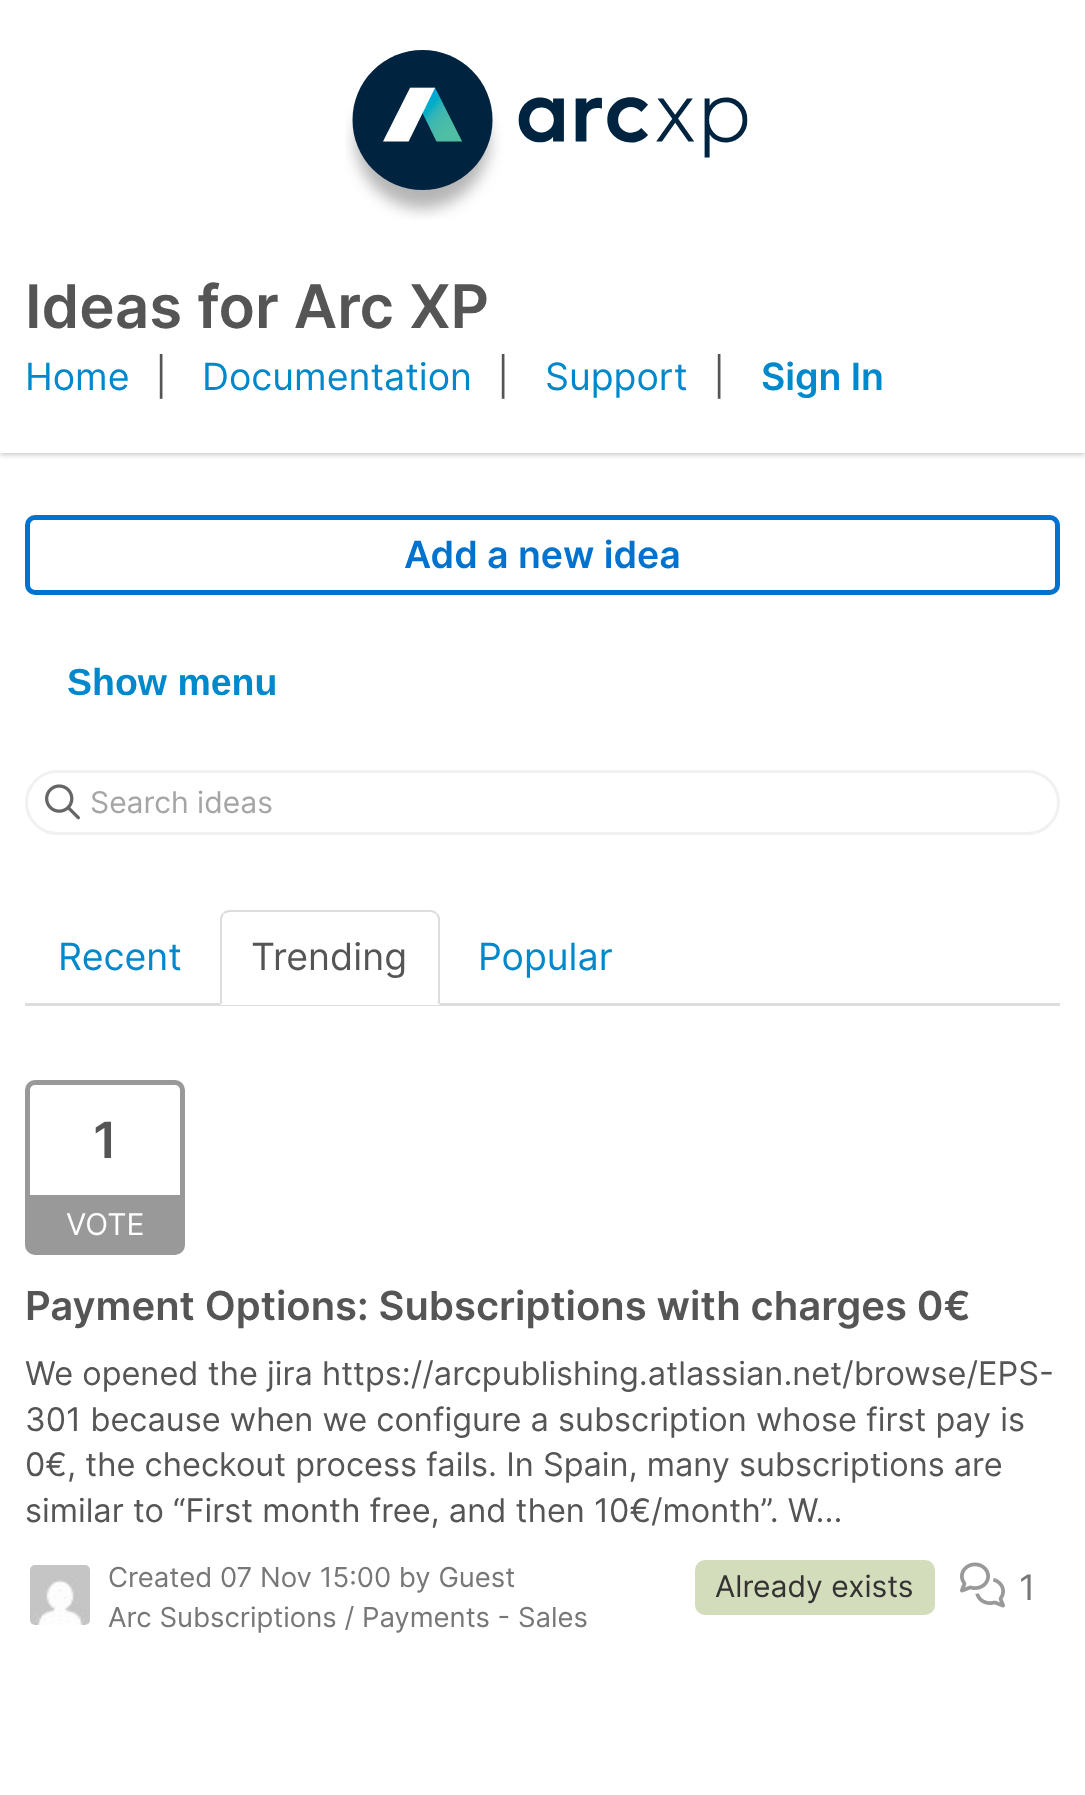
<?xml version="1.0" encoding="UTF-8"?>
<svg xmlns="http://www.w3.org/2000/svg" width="1085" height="1795">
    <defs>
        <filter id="blur1" x="-50%" y="-200%" width="200%" height="500%"><feGaussianBlur stdDeviation="2.5"/></filter>
    </defs>
    <rect width="100%" height="100%" fill="#FFFFFF"/>
    <rect x="0" y="3" width="1085" height="452" fill="#000000" fill-opacity="0.2" filter="url(#blur1)"/>
    <rect x="0" y="0" width="1085" height="453" fill="#FFFFFF"/>
    <image x="345" y="50" width="403" height="170" href="img_01.png"/>
    <text x="25" y="328" font-family="Inter" font-size="60" font-weight="600" fill="#555555">Ideas for Arc XP</text>
    <text x="25" y="390" font-family="Inter" font-size="37.5" fill="#0088CC">Home</text>
    <text x="155" y="390" font-family="Inter" font-size="37.5" fill="#555555">|</text>
    <text x="202" y="390" font-family="Inter" font-size="37.5" fill="#0088CC">Documentation</text>
    <text x="497" y="390" font-family="Inter" font-size="37.5" fill="#555555">|</text>
    <text x="545" y="390" font-family="Inter" font-size="37.5" fill="#0088CC">Support</text>
    <text x="713" y="390" font-family="Inter" font-size="37.5" fill="#555555">|</text>
    <text x="761" y="390" font-family="Inter" font-size="37.5" font-weight="600" fill="#0088CC">Sign In</text>
    <rect x="27.5" y="517.5" width="1030" height="75" rx="7.5" fill="none" stroke="#0173CF" stroke-width="5"/>
    <text x="404" y="568" font-family="Inter" font-size="37.5" font-weight="600" fill="#0173CF">Add a new idea</text>
    <text x="67" y="695" font-family="Liberation Sans" font-size="37.5" font-weight="700" fill="#0088CC">Show menu</text>
    <rect x="26.5" y="771.5" width="1032" height="62" rx="31" fill="none" stroke="#F1F1F1" stroke-width="3"/>
    <image x="45" y="784" width="35" height="36" href="img_02.png"/>
    <text x="90" y="813" font-family="Inter" font-size="30" fill="#A5A5A5">Search ideas</text>
    <rect x="25" y="1003" width="1035" height="3" fill="#DDDDDD"/>
    <text x="58" y="970" font-family="Inter" font-size="37.5" fill="#0088CC">Recent</text>
    <path d="M 230 910 H 430 C 435.5 910 440 914.5 440 920 V 1005 H 220 V 920 C 220 914.5 224.5 910 230 910 Z" fill="#FFFFFF"/>
    <path d="M 230 910 C 227 910 224 911 223 913 L 224 914 C 226 913 228 912 230 912 H 430 C 432 912 434 913 436 914 L 437 913 C 436 911 433 910 430 910 Z" fill="#DDDDDD"/>
    <path d="M 440 1005 V 920 C 440 917 439 914 437 913 L 436 914 C 437 916 438 918 438 920 V 1002 H 437 Z" fill="#DDDDDD"/>
    <path d="M 220 1005 L 223 1002 H 222 V 920 C 222 918 223 916 224 914 L 223 913 C 221 914 220 917 220 920 Z" fill="#DDDDDD"/>
    <text x="251" y="970" font-family="Inter" font-size="37.5" fill="#555555">Trending</text>
    <text x="478" y="970" font-family="Inter" font-size="37.5" fill="#0088CC">Popular</text>
    <rect x="27.5" y="1082.5" width="155" height="170" rx="7.5" fill="none" stroke="#999999" stroke-width="5"/>
    <text x="93" y="1158" font-family="Inter" font-size="50" font-weight="600" fill="#555555">1</text>
    <rect x="30" y="1195" width="150" height="55" fill="#999999"/>
    <text x="66" y="1235" font-family="Inter" font-size="30" fill="#FFFFFF">VOTE</text>
    <text x="25" y="1320" font-family="Inter" font-size="40" font-weight="600" fill="#555555">Payment Options: Subscriptions with charges 0€</text>
    <text font-family="Inter" font-size="32.5" fill="#555555">
        <tspan x="25" y="1385">We opened the jira https://arcpublishing.atlassian.net/browse/EPS-</tspan>
        <tspan x="25" y="1431">301 because when we configure a subscription whose first pay is</tspan>
        <tspan x="25" y="1476">0€, the checkout process fails. In Spain, many subscriptions are</tspan>
        <tspan x="25" y="1522">similar to “First month free, and then 10€/month”. W...</tspan>
    </text>
    <image x="30" y="1565" width="60" height="60" href="img_03.png"/>
    <text font-family="Inter" font-size="27.5" fill="#777777">
        <tspan x="108" y="1587">Created 07 Nov 15:00 by Guest</tspan>
        <tspan x="108" y="1627">Arc Subscriptions / Payments - Sales</tspan>
    </text>
    <rect x="695" y="1560" width="240" height="55" rx="10" fill="#D3DCBB"/>
    <text x="715" y="1597" font-family="Inter" font-size="30" fill="#333333">Already exists</text>
    <image x="960" y="1562" width="45" height="46" href="img_04.png"/>
    <text x="1019" y="1600" font-family="Inter" font-size="35" fill="#777777">1</text>
</svg>
